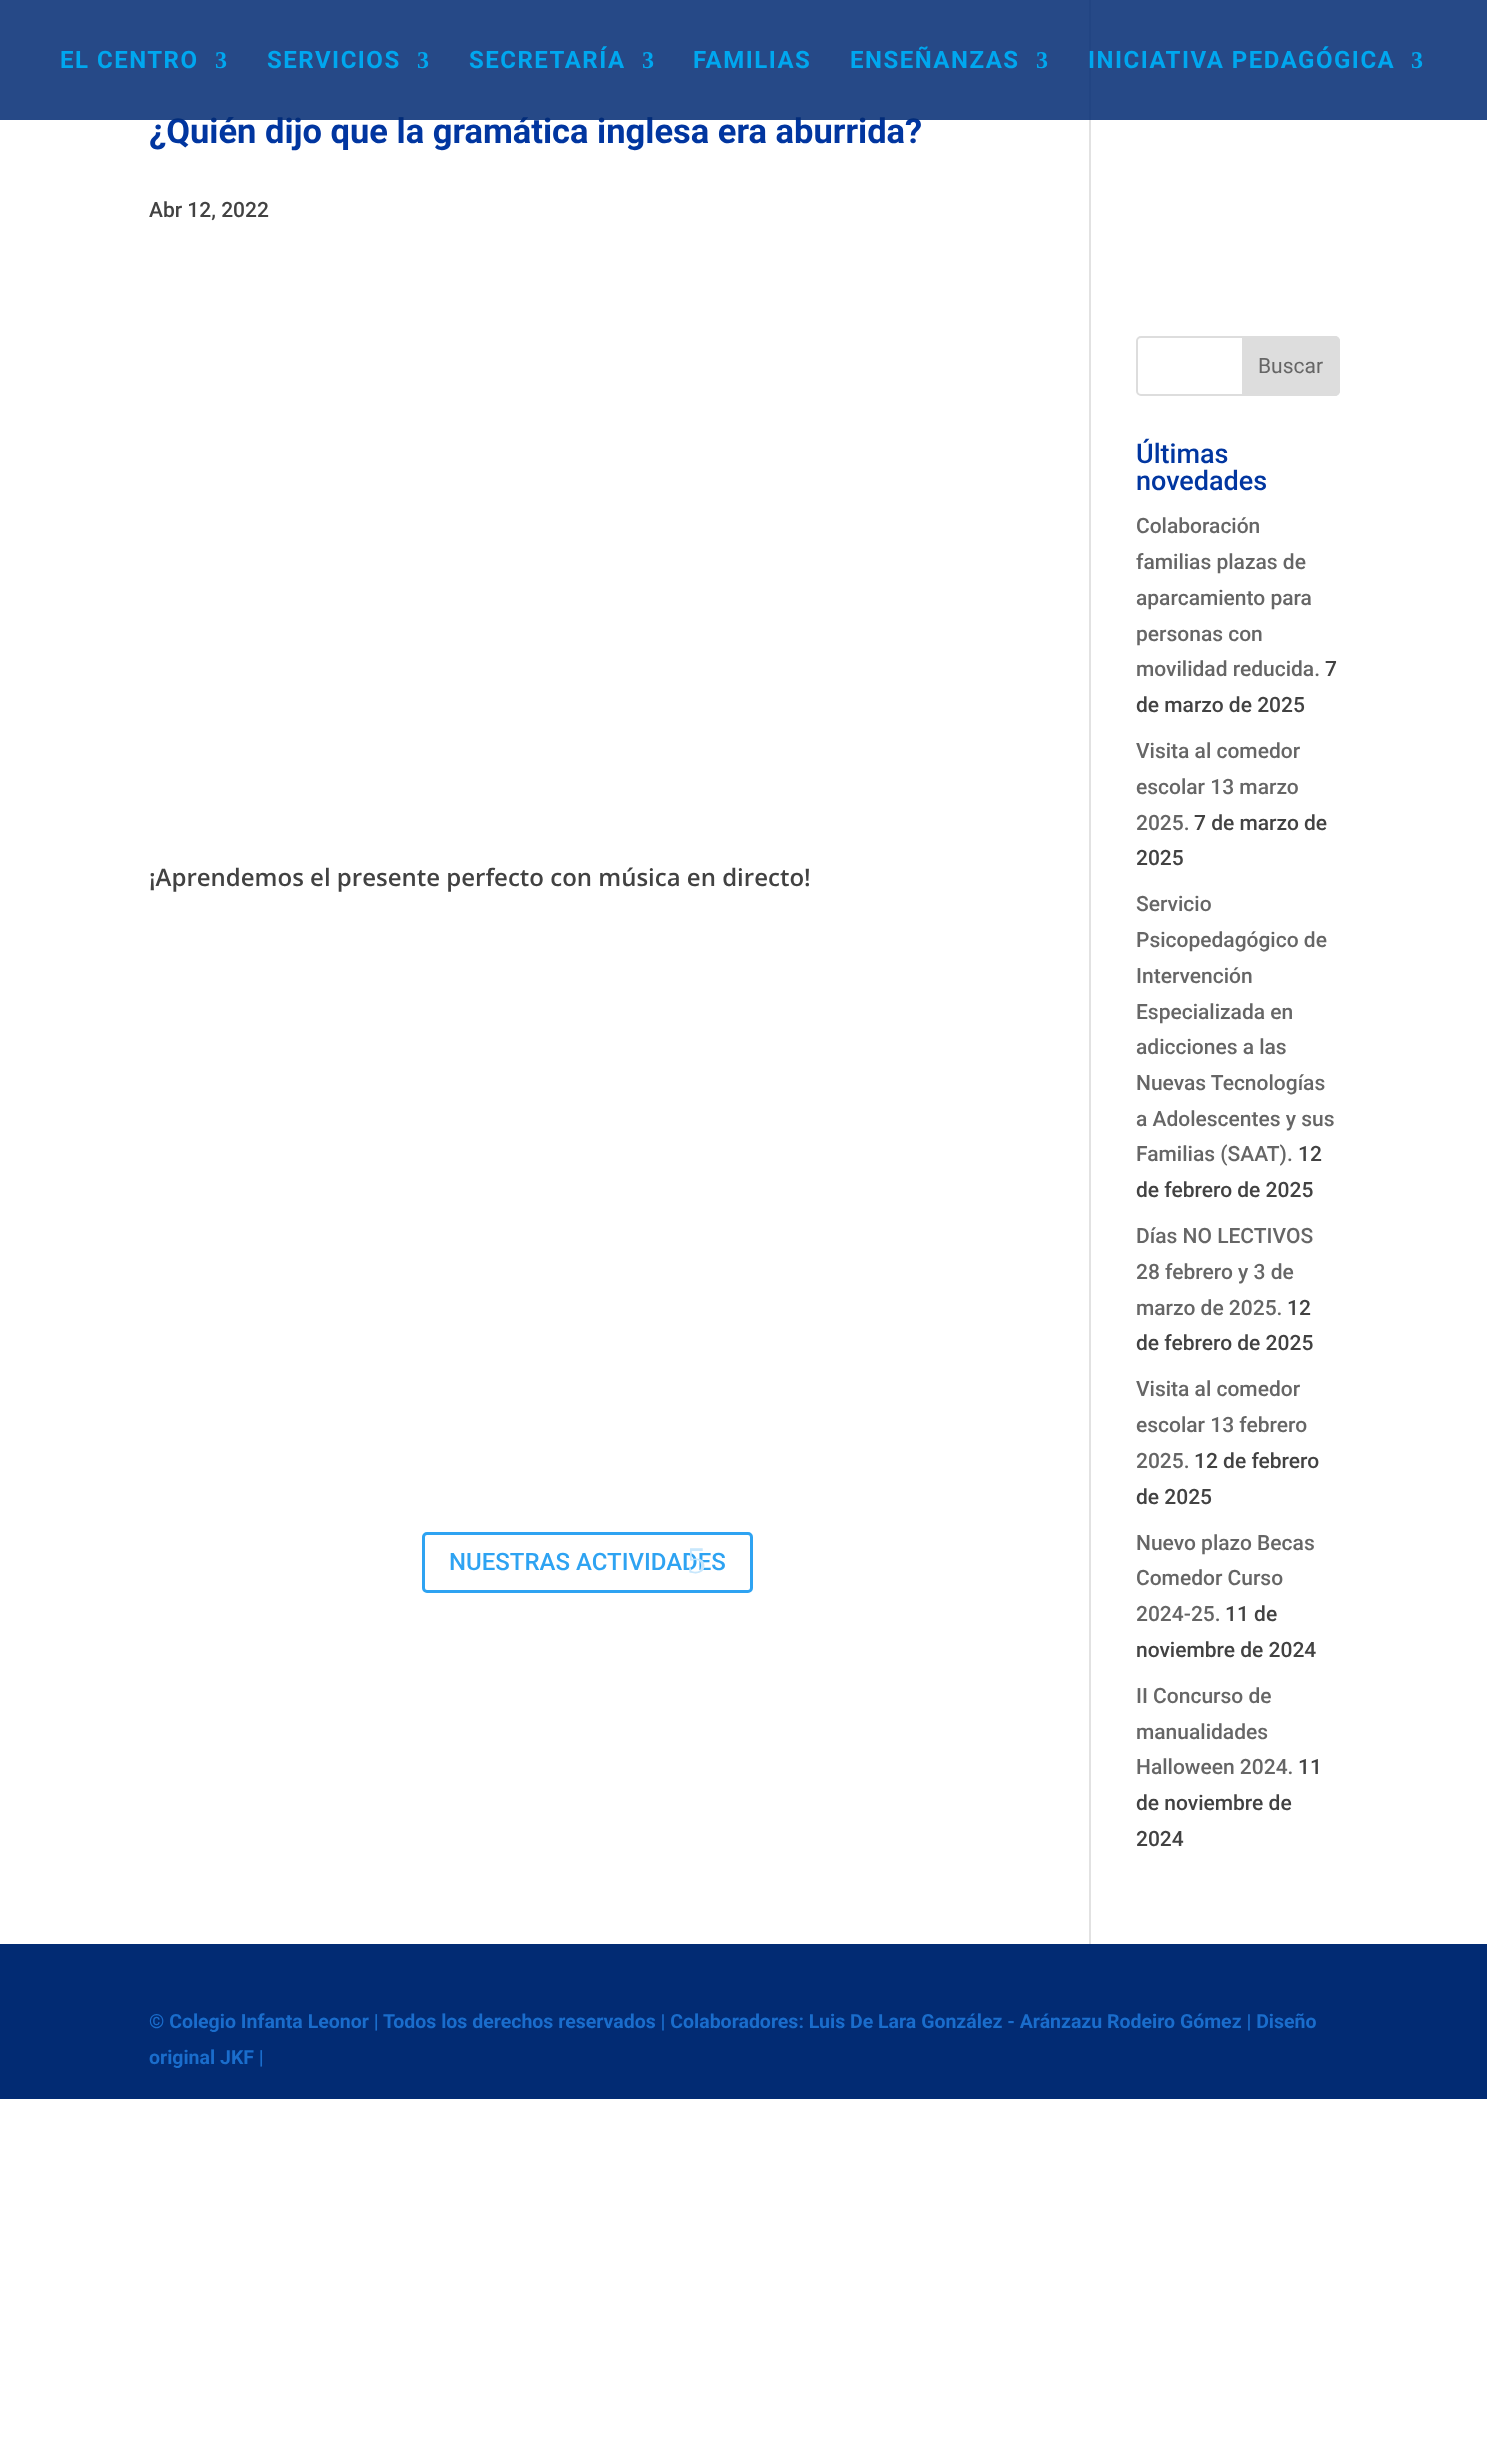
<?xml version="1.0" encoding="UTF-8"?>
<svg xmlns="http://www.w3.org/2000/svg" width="1487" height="2439">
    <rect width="100%" height="100%" fill="#FFFFFF"/>
    <rect x="1089" y="0" width="2" height="1944" fill="#E2E2E2"/>
    <text x="149" y="143" font-family="Roboto" font-size="34.5" font-weight="700" fill="#0136A0">¿Quién dijo que la gramática inglesa era aburrida?</text>
    <rect x="0" y="0" width="1487" height="120" fill="#022B73" fill-opacity="0.86"/>
    <text x="60" y="68" font-family="Roboto" font-size="24" font-weight="700" letter-spacing="1.5" fill="#00A7EF">EL CENTRO</text>
    <text x="215" y="68" font-family="Liberation Serif" font-size="24" font-weight="700" letter-spacing="1.5" fill="#00A7EF">3</text>
    <text x="267" y="68" font-family="Roboto" font-size="24" font-weight="700" letter-spacing="1.5" fill="#00A7EF">SERVICIOS</text>
    <text x="417" y="68" font-family="Liberation Serif" font-size="24" font-weight="700" letter-spacing="1.5" fill="#00A7EF">3</text>
    <text x="469" y="68" font-family="Roboto" font-size="24" font-weight="700" letter-spacing="1.5" fill="#00A7EF">SECRETARÍA</text>
    <text x="642" y="68" font-family="Liberation Serif" font-size="24" font-weight="700" letter-spacing="1.5" fill="#00A7EF">3</text>
    <text x="693" y="68" font-family="Roboto" font-size="24" font-weight="700" letter-spacing="1.5" fill="#00A7EF">FAMILIAS</text>
    <text x="850" y="68" font-family="Roboto" font-size="24" font-weight="700" letter-spacing="1.5" fill="#00A7EF">ENSEÑANZAS</text>
    <text x="1036" y="68" font-family="Liberation Serif" font-size="24" font-weight="700" letter-spacing="1.5" fill="#00A7EF">3</text>
    <text x="1088" y="68" font-family="Roboto" font-size="24" font-weight="700" letter-spacing="1.5" fill="#00A7EF">INICIATIVA PEDAGÓGICA</text>
    <text x="1411" y="68" font-family="Liberation Serif" font-size="24" font-weight="700" letter-spacing="1.5" fill="#00A7EF">3</text>
    <text x="149" y="217" font-family="Roboto" font-size="21" font-weight="500" fill="#424242">Abr 12, 2022</text>
    <text x="149" y="886" font-family="Open Sans" font-size="24" font-weight="600" fill="#424242">¡Aprendemos el presente perfecto con música en directo!</text>
    <rect x="423.5" y="1533.5" width="328" height="58" rx="3.5" fill="none" stroke="#2EA3F2" stroke-width="3"/>
    <text x="449" y="1570" font-family="Roboto" font-size="24" font-weight="500" fill="#2EA3F2">NUESTRAS ACTIVIDADES</text>
    <text x="687" y="1573" font-family="Liberation Serif" font-size="38" fill="#C8E7FC">5</text>
    <rect x="1137" y="337" width="202" height="58" rx="4" fill="none" stroke="#DDDDDD" stroke-width="2"/>
    <path d="M 1243 337 H 1335 C 1337 337 1339 339 1339 341 V 391 C 1339 393 1337 395 1335 395 H 1243 Z" fill="#DDDDDD" stroke="#DDDDDD" stroke-width="2"/>
    <text x="1258" y="373" font-family="Roboto" font-size="21" fill="#666666">Buscar</text>
    <text font-family="Roboto" font-size="27" font-weight="500" fill="#0136A0">
        <tspan x="1136" y="463">Últimas</tspan>
        <tspan x="1136" y="490">novedades</tspan>
    </text>
    <text font-family="Roboto" font-size="21" font-weight="500" fill="#666666">
        <tspan x="1136" y="533">Colaboración</tspan>
        <tspan x="1136" y="569">familias plazas de</tspan>
        <tspan x="1136" y="605">aparcamiento para</tspan>
        <tspan x="1136" y="641">personas con</tspan>
        <tspan x="1136" y="676">movilidad reducida.</tspan>
    </text>
    <text x="1325" y="676" font-family="Roboto" font-size="21" font-weight="500" fill="#424242">7</text>
    <text x="1136" y="712" font-family="Roboto" font-size="21" font-weight="500" fill="#424242">de marzo de 2025</text>
    <text font-family="Roboto" font-size="21" font-weight="500" fill="#666666">
        <tspan x="1136" y="758">Visita al comedor</tspan>
        <tspan x="1136" y="794">escolar 13 marzo</tspan>
        <tspan x="1136" y="830">2025.</tspan>
    </text>
    <text x="1194" y="830" font-family="Roboto" font-size="21" font-weight="500" fill="#424242">7 de marzo de</text>
    <text x="1136" y="865" font-family="Roboto" font-size="21" font-weight="500" fill="#424242">2025</text>
    <text font-family="Roboto" font-size="21" font-weight="500" fill="#666666">
        <tspan x="1136" y="911">Servicio</tspan>
        <tspan x="1136" y="947">Psicopedagógico de</tspan>
        <tspan x="1136" y="983">Intervención</tspan>
        <tspan x="1136" y="1019">Especializada en</tspan>
        <tspan x="1136" y="1054">adicciones a las</tspan>
        <tspan x="1136" y="1090">Nuevas Tecnologías</tspan>
        <tspan x="1136" y="1126">a Adolescentes y sus</tspan>
        <tspan x="1136" y="1161">Familias (SAAT).</tspan>
    </text>
    <text x="1298" y="1161" font-family="Roboto" font-size="21" font-weight="500" fill="#424242">12</text>
    <text x="1136" y="1197" font-family="Roboto" font-size="21" font-weight="500" fill="#424242">de febrero de 2025</text>
    <text font-family="Roboto" font-size="21" font-weight="500" fill="#666666">
        <tspan x="1136" y="1243">Días NO LECTIVOS</tspan>
        <tspan x="1136" y="1279">28 febrero y 3 de</tspan>
        <tspan x="1136" y="1315">marzo de 2025.</tspan>
    </text>
    <text x="1287" y="1315" font-family="Roboto" font-size="21" font-weight="500" fill="#424242">12</text>
    <text x="1136" y="1350" font-family="Roboto" font-size="21" font-weight="500" fill="#424242">de febrero de 2025</text>
    <text font-family="Roboto" font-size="21" font-weight="500" fill="#666666">
        <tspan x="1136" y="1396">Visita al comedor</tspan>
        <tspan x="1136" y="1432">escolar 13 febrero</tspan>
        <tspan x="1136" y="1468">2025.</tspan>
    </text>
    <text x="1194" y="1468" font-family="Roboto" font-size="21" font-weight="500" fill="#424242">12 de febrero</text>
    <text x="1136" y="1504" font-family="Roboto" font-size="21" font-weight="500" fill="#424242">de 2025</text>
    <text font-family="Roboto" font-size="21" font-weight="500" fill="#666666">
        <tspan x="1136" y="1550">Nuevo plazo Becas</tspan>
        <tspan x="1136" y="1585">Comedor Curso</tspan>
        <tspan x="1136" y="1621">2024-25.</tspan>
    </text>
    <text x="1225" y="1621" font-family="Roboto" font-size="21" font-weight="500" fill="#424242">11 de</text>
    <text x="1136" y="1657" font-family="Roboto" font-size="21" font-weight="500" fill="#424242">noviembre de 2024</text>
    <text font-family="Roboto" font-size="21" font-weight="500" fill="#666666">
        <tspan x="1136" y="1703">II Concurso de</tspan>
        <tspan x="1136" y="1739">manualidades</tspan>
        <tspan x="1136" y="1774">Halloween 2024.</tspan>
    </text>
    <text x="1298" y="1774" font-family="Roboto" font-size="21" font-weight="500" fill="#424242">11</text>
    <text font-family="Roboto" font-size="21" font-weight="500" fill="#424242">
        <tspan x="1136" y="1810">de noviembre de</tspan>
        <tspan x="1136" y="1846">2024</tspan>
    </text>
    <rect x="0" y="1944" width="1487" height="155" fill="#022B73"/>
    <text font-family="Roboto" font-size="19.5" font-weight="700" fill="#1A6DCC">
        <tspan x="149" y="2028">© Colegio Infanta Leonor | Todos los derechos reservados | Colaboradores: Luis De Lara González - Aránzazu Rodeiro Gómez | Diseño</tspan>
        <tspan x="149" y="2064">original JKF |</tspan>
    </text>
</svg>
